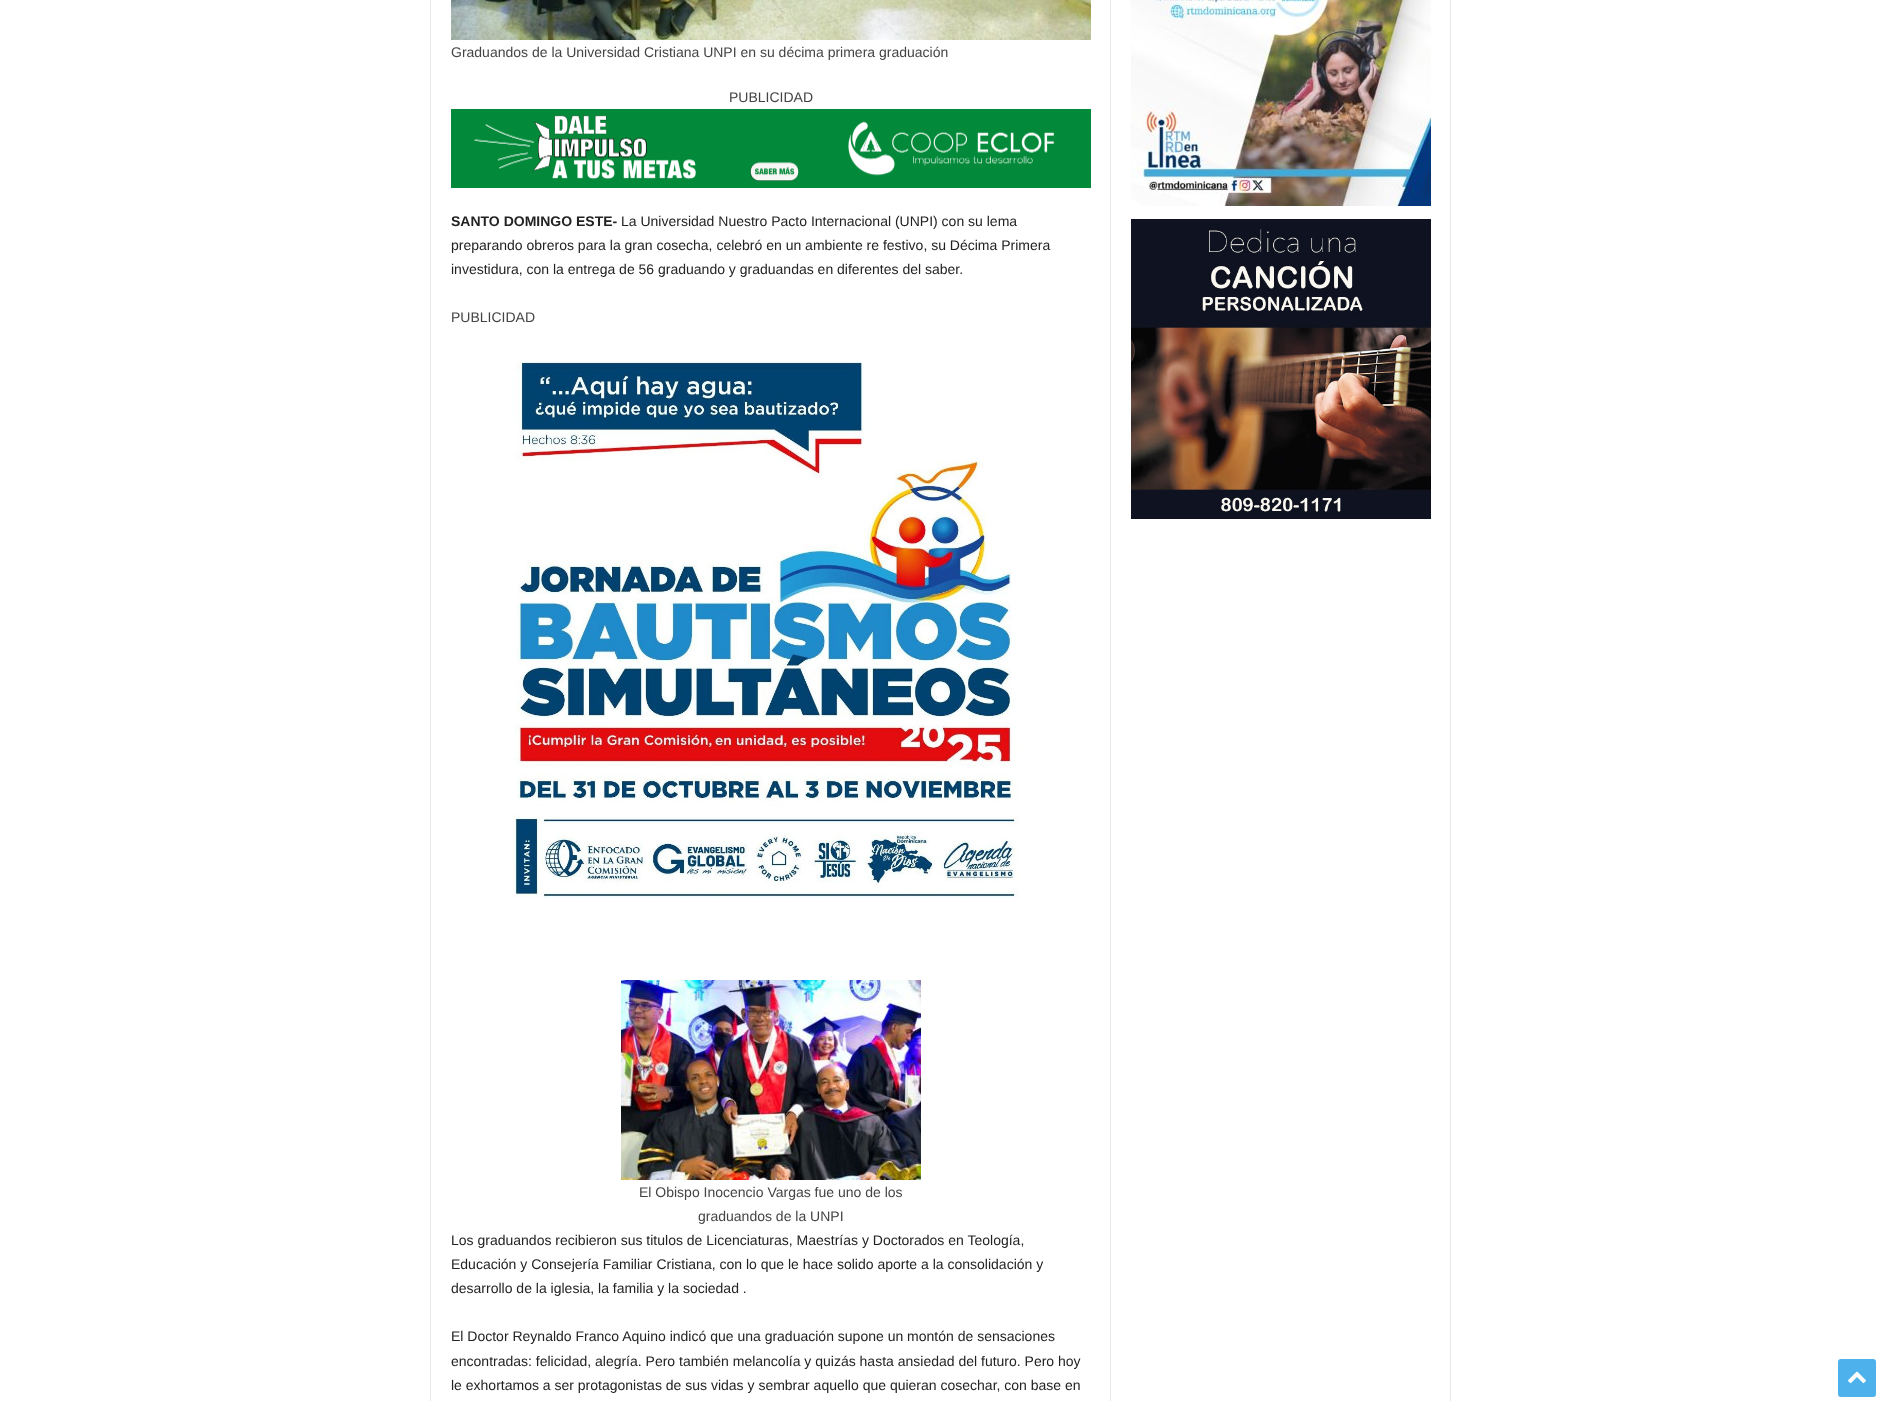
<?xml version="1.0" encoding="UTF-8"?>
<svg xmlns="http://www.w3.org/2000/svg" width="1881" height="1401">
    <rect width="100%" height="100%" fill="#FFFFFF"/>
    <rect x="430" y="0" width="1" height="1401" fill="#E6E6E6"/>
    <image x="451" y="0" width="640" height="40" href="img_01.png"/>
    <text x="451" y="57" font-family="Liberation Sans" font-size="14" fill="#444444">Graduandos de la Universidad Cristiana UNPI en su décima primera graduación</text>
    <text x="729" y="102" font-family="Liberation Sans" font-size="14" fill="#444444">PUBLICIDAD</text>
    <image x="451" y="109" width="640" height="79" href="img_02.png"/>
    <text x="451" y="226" font-family="Liberation Sans" font-size="14" font-weight="700" fill="#222222">SANTO DOMINGO ESTE-</text>
    <text x="621" y="226" font-family="Liberation Sans" font-size="14" fill="#222222">La Universidad Nuestro Pacto Internacional (UNPI) con su lema</text>
    <text font-family="Liberation Sans" font-size="14" fill="#222222">
        <tspan x="451" y="250">preparando obreros para la gran cosecha, celebró en un ambiente re festivo, su Décima Primera</tspan>
        <tspan x="451" y="274">investidura, con la entrega de 56 graduando y graduandas en diferentes del saber.</tspan>
    </text>
    <text x="451" y="322" font-family="Liberation Sans" font-size="14" fill="#444444">PUBLICIDAD</text>
    <image x="511" y="361" width="509" height="537" href="img_03.png"/>
    <image x="621" y="980" width="300" height="200" href="img_04.png"/>
    <text x="639" y="1197" font-family="Liberation Sans" font-size="14" fill="#444444">El Obispo Inocencio Vargas fue uno de los</text>
    <text x="698" y="1221" font-family="Liberation Sans" font-size="14" fill="#444444">graduandos de la UNPI</text>
    <text font-family="Liberation Sans" font-size="14" fill="#222222">
        <tspan x="451" y="1245">Los graduandos recibieron sus titulos de Licenciaturas, Maestrías y Doctorados en Teología,</tspan>
        <tspan x="451" y="1269">Educación y Consejería Familiar Cristiana, con lo que le hace solido aporte a la consolidación y</tspan>
        <tspan x="451" y="1293">desarrollo de la iglesia, la familia y la sociedad .</tspan>
    </text>
    <text font-family="Liberation Sans" font-size="14" fill="#222222">
        <tspan x="451" y="1341">El Doctor Reynaldo Franco Aquino indicó que una graduación supone un montón de sensaciones</tspan>
        <tspan x="451" y="1366">encontradas: felicidad, alegría. Pero también melancolía y quizás hasta ansiedad del futuro. Pero hoy</tspan>
        <tspan x="451" y="1390">le exhortamos a ser protagonistas de sus vidas y sembrar aquello que quieran cosechar, con base en</tspan>
    </text>
    <rect x="1110" y="0" width="1" height="1401" fill="#E6E6E6"/>
    <image x="1131" y="0" width="300" height="206" href="img_05.png"/>
    <image x="1131" y="219" width="300" height="300" href="img_06.png"/>
    <rect x="1450" y="0" width="1" height="1401" fill="#E6E6E6"/>
    <rect x="1838" y="1359" width="38" height="38" rx="3" fill="#4DB2EC"/>
    <image x="1848" y="1371" width="18" height="13" href="img_07.png"/>
</svg>
